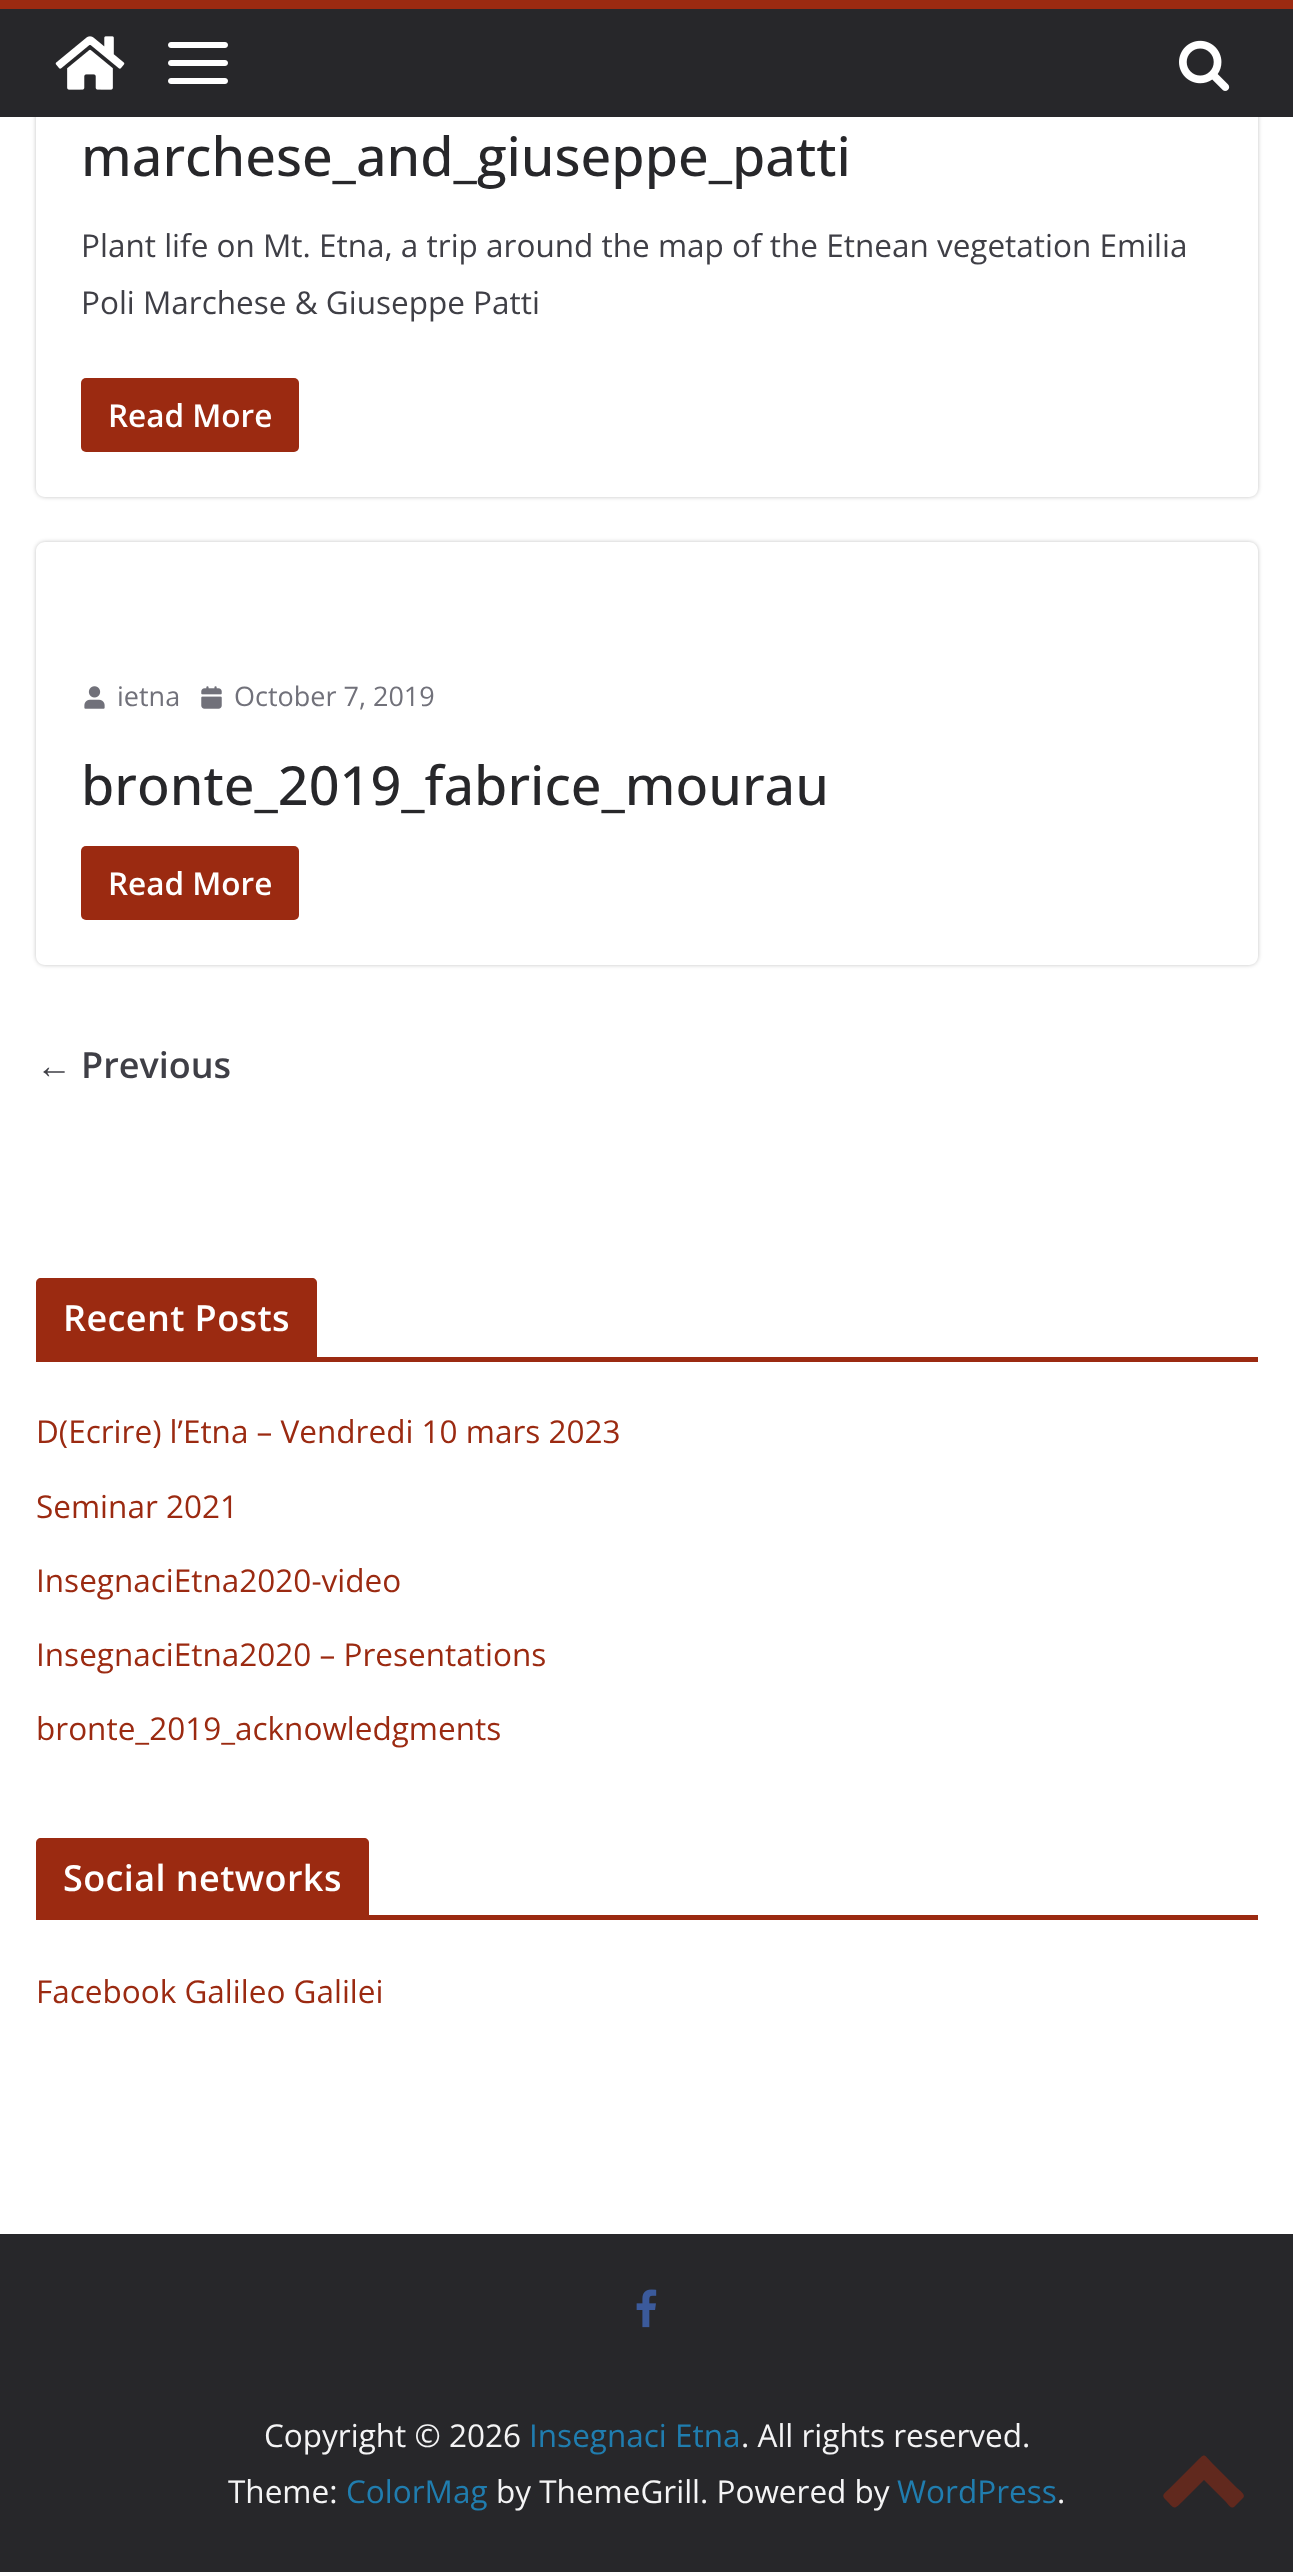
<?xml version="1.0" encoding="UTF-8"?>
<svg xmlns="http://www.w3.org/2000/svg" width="1293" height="2572">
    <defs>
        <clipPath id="clip1"><path d="M 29 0 H 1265 V 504 H 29 Z M 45 -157 H 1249 C 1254 -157 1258 -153 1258 -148 V 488 C 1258 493 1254 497 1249 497 H 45 C 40 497 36 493 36 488 V -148 C 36 -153 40 -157 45 -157 Z" clip-rule="evenodd"/></clipPath>
        <filter id="blur1" x="-50%" y="-200%" width="200%" height="500%"><feGaussianBlur stdDeviation="2"/></filter>
        <clipPath id="clip2"><path d="M 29 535 H 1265 V 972 H 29 Z M 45 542 H 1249 C 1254 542 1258 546 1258 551 V 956 C 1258 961 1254 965 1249 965 H 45 C 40 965 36 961 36 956 V 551 C 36 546 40 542 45 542 Z" clip-rule="evenodd"/></clipPath>
    </defs>
    <rect width="100%" height="100%" fill="#FFFFFF"/>
    <g clip-path="url(#clip1)">
        <rect x="36" y="-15" width="1222" height="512" rx="9" fill="#000000" fill-opacity="0.24" filter="url(#blur1)"/>
    </g>
    <rect x="0" y="9" width="1293" height="108" fill="#27272A"/>
    <rect x="0" y="0" width="1293" height="9" fill="#9B2A11"/>
    <image x="55" y="36" width="70" height="54" href="img_01.png"/>
    <image x="168" y="42" width="60" height="42" href="img_02.png"/>
    <image x="1179" y="40" width="51" height="51" href="img_03.png"/>
    <text x="81" y="176" font-family="Open Sans" font-size="54" font-weight="500" fill="#27272A">marchese_and_giuseppe_patti</text>
    <text font-family="Open Sans" font-size="31.5" fill="#3F3F46">
        <tspan x="81" y="257">Plant life on Mt. Etna, a trip around the map of the Etnean vegetation Emilia</tspan>
        <tspan x="81" y="314">Poli Marchese &amp; Giuseppe Patti</tspan>
    </text>
    <rect x="81" y="378" width="218" height="74" rx="5" fill="#9B2A11"/>
    <text x="108" y="427" font-family="Open Sans" font-size="31.5" font-weight="600" fill="#FFFFFF">Read More</text>
    <g clip-path="url(#clip2)">
        <rect x="36" y="542" width="1222" height="423" rx="9" fill="#000000" fill-opacity="0.24" filter="url(#blur1)"/>
    </g>
    <image x="84" y="686" width="21" height="23" href="img_04.png"/>
    <text x="117" y="706" font-family="Open Sans" font-size="27" fill="#71717A">ietna</text>
    <image x="201" y="686" width="21" height="23" href="img_05.png"/>
    <text x="234" y="706" font-family="Open Sans" font-size="27" fill="#71717A">October 7, 2019</text>
    <text x="81" y="805" font-family="Open Sans" font-size="54" font-weight="500" fill="#27272A">bronte_2019_fabrice_mourau</text>
    <rect x="81" y="846" width="218" height="74" rx="5" fill="#9B2A11"/>
    <text x="108" y="895" font-family="Open Sans" font-size="31.5" font-weight="600" fill="#FFFFFF">Read More</text>
    <text x="36" y="1078" font-family="Liberation Serif" font-size="36" font-weight="700" fill="#3F3F46">←</text>
    <text x="81" y="1078" font-family="Open Sans" font-size="36" font-weight="600" fill="#3F3F46">Previous</text>
    <rect x="36" y="1357" width="1222" height="5" fill="#9B2A11"/>
    <path d="M 41 1278 H 312 C 315 1278 317 1280 317 1283 V 1357 H 36 V 1283 C 36 1280 38 1278 41 1278 Z" fill="#9B2A11"/>
    <text x="63" y="1331" font-family="Open Sans" font-size="36" font-weight="600" letter-spacing="0.4" fill="#FFFFFF">Recent Posts</text>
    <text x="36" y="1443" font-family="Open Sans" font-size="31.5" fill="#9B2A11">D(Ecrire) l’Etna – Vendredi 10 mars 2023</text>
    <text x="36" y="1518" font-family="Open Sans" font-size="31.5" fill="#9B2A11">Seminar 2021</text>
    <text x="36" y="1592" font-family="Open Sans" font-size="31.5" fill="#9B2A11">InsegnaciEtna2020-video</text>
    <text x="36" y="1666" font-family="Open Sans" font-size="31.5" fill="#9B2A11">InsegnaciEtna2020 – Presentations</text>
    <text x="36" y="1740" font-family="Open Sans" font-size="31.5" fill="#9B2A11">bronte_2019_acknowledgments</text>
    <rect x="36" y="1915" width="1222" height="5" fill="#9B2A11"/>
    <path d="M 41 1838 H 364 C 367 1838 369 1840 369 1843 V 1915 H 36 V 1843 C 36 1840 38 1838 41 1838 Z" fill="#9B2A11"/>
    <text x="63" y="1891" font-family="Open Sans" font-size="36" font-weight="600" letter-spacing="0.4" fill="#FFFFFF">Social networks</text>
    <text x="36" y="2003" font-family="Open Sans" font-size="31.5" fill="#9B2A11">Facebook Galileo Galilei</text>
    <rect x="0" y="2234" width="1293" height="338" fill="#27272A"/>
    <image x="636" y="2289" width="21" height="39" href="img_06.png"/>
    <text x="264" y="2447" font-family="Open Sans" font-size="31.5" fill="#F4F4F5">Copyright © 2026</text>
    <text x="529" y="2447" font-family="Open Sans" font-size="31.5" fill="#207DAF">Insegnaci Etna</text>
    <text x="741" y="2447" font-family="Open Sans" font-size="31.5" fill="#F4F4F5">. All rights reserved.</text>
    <text x="228" y="2503" font-family="Open Sans" font-size="31.5" fill="#F4F4F5">Theme:</text>
    <text x="346" y="2503" font-family="Open Sans" font-size="31.5" fill="#207DAF">ColorMag</text>
    <text x="496" y="2503" font-family="Open Sans" font-size="31.5" fill="#F4F4F5">by ThemeGrill. Powered by</text>
    <text x="897" y="2503" font-family="Open Sans" font-size="31.5" fill="#207DAF">WordPress</text>
    <text x="1057" y="2503" font-family="Open Sans" font-size="31.5" fill="#F4F4F5">.</text>
    <path d="M 1243 2498 L 1236 2505 C 1232 2510 1230 2507 1226 2502 L 1204 2480 L 1182 2502 C 1173 2511 1174 2508 1166 2500 C 1160 2495 1165 2493 1170 2488 L 1195 2463 C 1205 2453 1203 2453 1212 2463 L 1237 2488 C 1238 2489 1247 2495 1243 2498 Z" fill="#61291E"/>
</svg>
